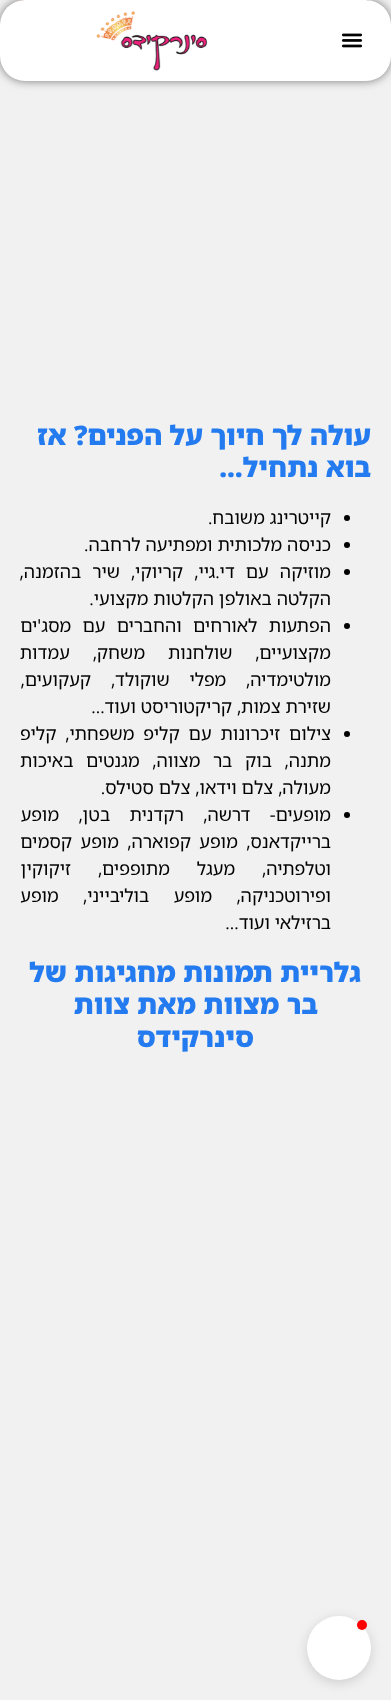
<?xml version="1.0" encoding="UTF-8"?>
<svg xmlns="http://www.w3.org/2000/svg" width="391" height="1700">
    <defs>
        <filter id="blur1" x="-50%" y="-200%" width="200%" height="500%"><feGaussianBlur stdDeviation="5"/></filter>
        <filter id="blur2" x="-50%" y="-200%" width="200%" height="500%"><feGaussianBlur stdDeviation="6"/></filter>
    </defs>
    <rect width="100%" height="100%" fill="#F1F1F1"/>
    <image x="20" y="0" width="351" height="1" href="img_03.png"/>
    <rect x="0" y="0" width="391" height="81" rx="25" fill="#000000" fill-opacity="0.5" filter="url(#blur1)"/>
    <rect x="0" y="0" width="391" height="81" rx="25" fill="#FFFFFF"/>
    <image x="341" y="33" width="22" height="15" href="img_01.png"/>
    <image x="96" y="11" width="112" height="60" href="img_02.png"/>
    <text font-family="Noto Sans Hebrew" font-size="27" font-weight="900" direction="rtl" fill="#247BEF">
        <tspan x="371" y="445">עולה לך חיוך על הפנים? אז</tspan>
        <tspan x="371" y="477">בוא נתחיל…</tspan>
    </text>
    <circle cx="347" cy="518" r="3" fill="#000000"/>
    <text x="331" y="524" font-family="Noto Sans Hebrew" font-size="18" direction="rtl" fill="#000000">קייטרינג משובח.</text>
    <circle cx="347" cy="545" r="3" fill="#000000"/>
    <text x="331" y="551" font-family="Noto Sans Hebrew" font-size="18" direction="rtl" fill="#000000">כניסה מלכותית ומפתיעה לרחבה.</text>
    <circle cx="347" cy="572" r="3" fill="#000000"/>
    <text font-family="Noto Sans Hebrew" font-size="18" direction="rtl" fill="#000000">
        <tspan x="331" y="578" word-spacing="6.25">מוזיקה עם די.גיי, קריוקי, שיר בהזמנה,</tspan>
        <tspan x="331" y="605">הקלטה באולפן הקלטות מקצועי.</tspan>
    </text>
    <circle cx="347" cy="626" r="3" fill="#000000"/>
    <text font-family="Noto Sans Hebrew" font-size="18" direction="rtl" fill="#000000">
        <tspan x="331" y="632" word-spacing="6.5">הפתעות לאורחים והחברים עם מסג'ים</tspan>
        <tspan x="331" y="659" word-spacing="18">מקצועיים, שולחנות משחק, עמדות</tspan>
        <tspan x="331" y="686" word-spacing="15">מולטימדיה, מפלי שוקולד, קעקועים,</tspan>
        <tspan x="331" y="713">שזירת צמות, קריקטוריסט ועוד…</tspan>
    </text>
    <circle cx="347" cy="734" r="3" fill="#000000"/>
    <text font-family="Noto Sans Hebrew" font-size="18" direction="rtl" fill="#000000">
        <tspan x="331" y="740" word-spacing="4">צילום זיכרונות עם קליפ משפחתי, קליפ</tspan>
        <tspan x="331" y="767" word-spacing="7.75">מתנה, בוק בר מצווה, מגנטים באיכות</tspan>
        <tspan x="331" y="794">מעולה, צלם וידאו, צלם סטילס.</tspan>
    </text>
    <circle cx="347" cy="815" r="3" fill="#000000"/>
    <text font-family="Noto Sans Hebrew" font-size="18" direction="rtl" fill="#000000">
        <tspan x="331" y="821" word-spacing="14.5">מופעים- דרשה, רקדנית בטן, מופע</tspan>
        <tspan x="331" y="848" word-spacing="3.5">ברייקדאנס, מופע קפוארה, מופע קסמים</tspan>
        <tspan x="331" y="875" word-spacing="22">וטלפתיה, מעגל מתופפים, זיקוקין</tspan>
        <tspan x="331" y="902" word-spacing="19.5">ופירוטכניקה, מופע בוליבייני, מופע</tspan>
        <tspan x="331" y="929">ברזילאי ועוד…</tspan>
    </text>
    <text x="361" y="982" font-family="Noto Sans Hebrew" font-size="27" font-weight="900" direction="rtl" fill="#247BEF">גלריית תמונות מחגיגות של</text>
    <text x="318" y="1014" font-family="Noto Sans Hebrew" font-size="27" font-weight="900" direction="rtl" fill="#247BEF">בר מצוות מאת צוות</text>
    <text x="254" y="1047" font-family="Noto Sans Hebrew" font-size="27" font-weight="900" direction="rtl" fill="#247BEF">סינרקידס</text>
    <rect x="307" y="1619" width="64" height="64" rx="32" fill="#000000" fill-opacity="0.15" filter="url(#blur2)"/>
    <circle cx="339" cy="1648" r="32" fill="#FFFFFF"/>
    <circle cx="362" cy="1625" r="5" fill="#FF0000"/>
</svg>
